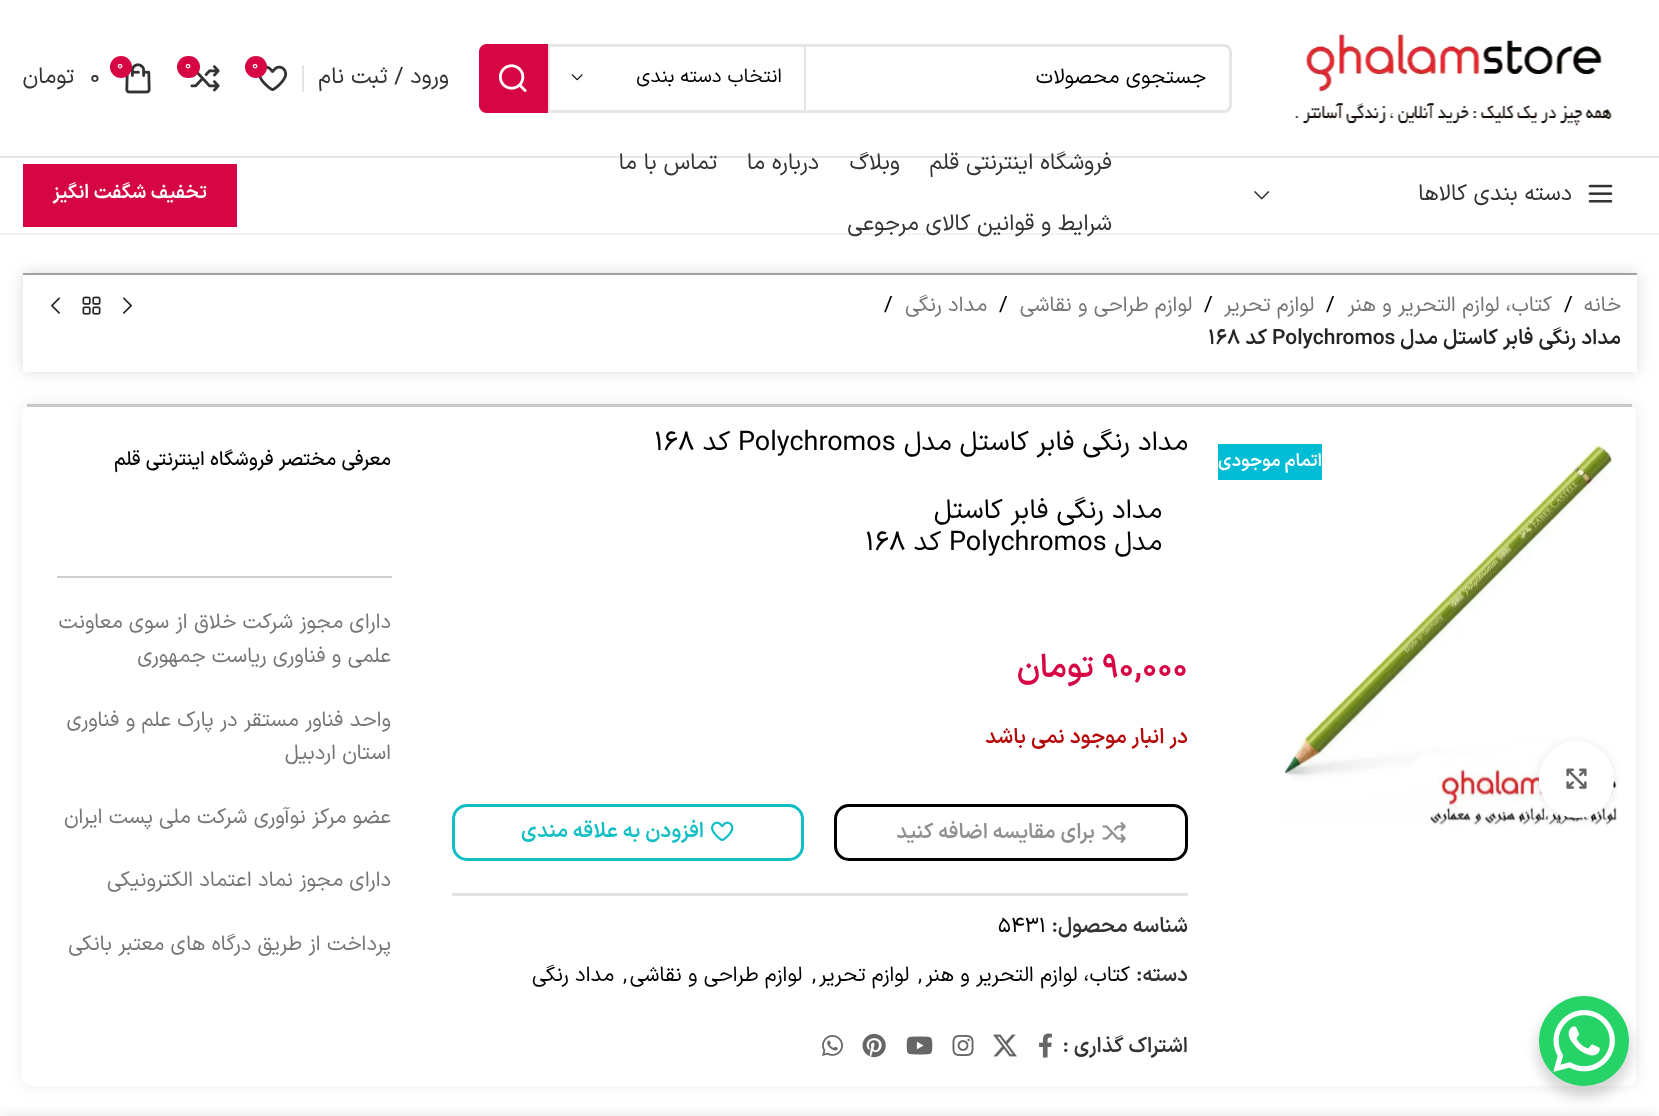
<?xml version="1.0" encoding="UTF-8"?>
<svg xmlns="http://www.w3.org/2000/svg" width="1659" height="1116">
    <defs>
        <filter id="blur1" x="-50%" y="-200%" width="200%" height="500%"><feGaussianBlur stdDeviation="7.5"/></filter>
        <filter id="blur2" x="-50%" y="-200%" width="200%" height="500%"><feGaussianBlur stdDeviation="4"/></filter>
        <filter id="blur3" x="-50%" y="-200%" width="200%" height="500%"><feGaussianBlur stdDeviation="6"/></filter>
        <filter id="blur4" x="-50%" y="-200%" width="200%" height="500%"><feGaussianBlur stdDeviation="7"/></filter>
    </defs>
    <rect width="100%" height="100%" fill="#FFFFFF"/>
    <rect x="0" y="156" width="1659" height="2" fill="#E6E6E6"/>
    <image x="1295" y="34" width="317" height="92" href="img_01.png"/>
    <rect x="480.5" y="45.5" width="750" height="66" rx="6.5" fill="none" stroke="#E6E6E6" stroke-width="3"/>
    <text x="1206" y="83" font-family="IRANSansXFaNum" font-size="21" direction="rtl" fill="#000000">جستجوی محصولات</text>
    <rect x="804" y="47" width="2" height="63" fill="#E6E6E6"/>
    <rect x="548" y="47" width="2" height="63" fill="#E6E6E6"/>
    <text x="782" y="82" font-family="IRANSansXFaNum" font-size="19.5" direction="rtl" fill="#000000">انتخاب دسته بندی</text>
    <image x="571" y="74" width="12" height="7" href="img_02.png"/>
    <path d="M 487 44 H 548 V 113 H 487 C 482.5 113 479 109.5 479 105 V 52 C 479 47.5 482.5 44 487 44 Z" fill="#D60644"/>
    <image x="498" y="64" width="29" height="28" href="img_03.png"/>
    <text x="449" y="83" font-family="IRANSansXFaNum" font-size="22.5" direction="rtl" fill="#333333">ورود / ثبت نام</text>
    <rect x="302" y="65" width="2" height="27" fill="#E4E4E4"/>
    <image x="258" y="65" width="30" height="26" href="img_04.png"/>
    <circle cx="256" cy="67" r="11" fill="#D60644"/>
    <text x="252" y="69" font-family="IRANSansXFaNum" font-size="14" fill="#FFFFFF">0</text>
    <image x="190" y="65" width="30" height="27" href="img_05.png"/>
    <rect x="177" y="56" width="23" height="22" rx="11" fill="#D60644"/>
    <text x="185" y="69" font-family="IRANSansXFaNum" font-size="14" fill="#FFFFFF">0</text>
    <image x="125" y="63" width="26" height="31" href="img_06.png"/>
    <circle cx="121" cy="67" r="11" fill="#D60644"/>
    <text x="117" y="69" font-family="IRANSansXFaNum" font-size="14" fill="#FFFFFF">0</text>
    <text x="90" y="83" font-family="IRANSansXFaNum" font-size="22.5" fill="#333333">0</text>
    <text x="74" y="83" font-family="IRANSansXFaNum" font-size="22.5" direction="rtl" fill="#333333">تومان</text>
    <rect x="0" y="233" width="1659" height="2" fill="#F2F2F2"/>
    <image x="1588" y="184" width="25" height="19" href="img_07.png"/>
    <text x="1572" y="200" font-family="IRANSansXFaNum" font-size="22.5" direction="rtl" fill="#333333">دسته بندی کالاها</text>
    <image x="1254" y="191" width="16" height="9" href="img_08.png"/>
    <text x="1112" y="169" font-family="IRANSansXFaNum" font-size="22.5" direction="rtl" fill="#333333">فروشگاه اینترنتی قلم</text>
    <text x="900" y="169" font-family="IRANSansXFaNum" font-size="22.5" direction="rtl" fill="#333333">وبلاگ</text>
    <text x="819" y="169" font-family="IRANSansXFaNum" font-size="22.5" direction="rtl" fill="#333333">درباره ما</text>
    <text x="717" y="169" font-family="IRANSansXFaNum" font-size="22.5" direction="rtl" fill="#333333">تماس با ما</text>
    <text x="1112" y="230" font-family="IRANSansXFaNum" font-size="22.5" direction="rtl" fill="#333333">شرایط و قوانین کالای مرجوعی</text>
    <rect x="23" y="164" width="214" height="63" fill="#D60644"/>
    <text x="207" y="198" font-family="IRANSansXFaNum" font-size="19.5" font-weight="600" direction="rtl" fill="#FFFFFF">تخفیف شگفت انگیز</text>
    <rect x="23" y="273" width="1614" height="99" fill="#BCB5B5" fill-opacity="0.5" filter="url(#blur1)"/>
    <rect x="23" y="275" width="1614" height="97" fill="#FFFFFF"/>
    <rect x="23" y="273" width="1614" height="2" fill="#A4A1A1"/>
    <text x="1621" y="311" font-family="IRANSansXFaNum" font-size="21" direction="rtl" fill="#767676">خانه</text>
    <text x="1564" y="311" font-family="IRANSansXFaNum" font-size="21" fill="#000000">/</text>
    <text x="1552" y="311" font-family="IRANSansXFaNum" font-size="21" direction="rtl" fill="#767676">کتاب، لوازم التحریر و هنر</text>
    <text x="1326" y="311" font-family="IRANSansXFaNum" font-size="21" fill="#000000">/</text>
    <text x="1314" y="311" font-family="IRANSansXFaNum" font-size="21" direction="rtl" fill="#767676">لوازم تحریر</text>
    <text x="1204" y="311" font-family="IRANSansXFaNum" font-size="21" fill="#000000">/</text>
    <text x="1192" y="311" font-family="IRANSansXFaNum" font-size="21" direction="rtl" fill="#767676">لوازم طراحی و نقاشی</text>
    <text x="999" y="311" font-family="IRANSansXFaNum" font-size="21" fill="#000000">/</text>
    <text x="987" y="311" font-family="IRANSansXFaNum" font-size="21" direction="rtl" fill="#767676">مداد رنگی</text>
    <text x="884" y="311" font-family="IRANSansXFaNum" font-size="21" fill="#000000">/</text>
    <text x="1621" y="344" font-family="IRANSansXFaNum" font-size="21" font-weight="600" direction="rtl" fill="#242424">مداد رنگی فابر کاستل مدل</text>
    <text x="1272" y="344" font-family="IRANSansXFaNum" font-size="21" font-weight="600" fill="#242424">Polychromos</text>
    <text x="1267" y="344" font-family="IRANSansXFaNum" font-size="21" font-weight="600" direction="rtl" fill="#242424">کد</text>
    <text x="1208" y="344" font-family="IRANSansXFaNum" font-size="21" font-weight="600" fill="#242424">168</text>
    <image x="123" y="297" width="9" height="17" href="img_09.png"/>
    <image x="82" y="296" width="19" height="19" href="img_10.png"/>
    <image x="51" y="297" width="9" height="17" href="img_11.png"/>
    <rect x="23" y="404" width="1614" height="682" rx="9" fill="#D7D7D7" fill-opacity="0.5" filter="url(#blur1)"/>
    <path d="M 32 406 H 1628 C 1632 406 1636 409 1636 412 V 1077 C 1636 1082 1632 1086 1628 1086 H 32 C 27 1086 22 1082 22 1077 V 412 C 22 409 27 406 32 406 Z" fill="#FFFFFF"/>
    <rect x="27" y="404" width="1605" height="3" fill="#CCC7C7"/>
    <image x="1284" y="444" width="333" height="383" href="img_12.png"/>
    <rect x="1218" y="444" width="104" height="36" fill="#00BCD4"/>
    <text x="1322" y="466" font-family="IRANSansXFaNum" font-size="18" font-weight="600" direction="rtl" fill="#FFFFFF">اتمام موجودی</text>
    <rect x="1539" y="741" width="75" height="77" rx="37.5" fill="#000000" fill-opacity="0.08" filter="url(#blur2)"/>
    <rect x="1539" y="741" width="75" height="77" rx="37.5" fill="#FFFFFF"/>
    <image x="1566" y="768" width="21" height="21" href="img_13.png"/>
    <text x="1188" y="450" font-family="IRANSansXFaNum" font-size="27" direction="rtl" fill="#000000">مداد رنگی فابر کاستل مدل</text>
    <text x="738" y="450" font-family="IRANSansXFaNum" font-size="27" fill="#000000">Polychromos</text>
    <text x="730" y="450" font-family="IRANSansXFaNum" font-size="27" direction="rtl" fill="#000000">کد</text>
    <text x="654" y="450" font-family="IRANSansXFaNum" font-size="27" fill="#000000">168</text>
    <text font-family="IRANSansXFaNum" font-size="27" direction="rtl" fill="#000000">
        <tspan x="1162" y="518">مداد رنگی فابر کاستل</tspan>
        <tspan x="1162" y="550">مدل</tspan>
    </text>
    <text x="949" y="550" font-family="IRANSansXFaNum" font-size="27" fill="#000000">Polychromos</text>
    <text x="941" y="550" font-family="IRANSansXFaNum" font-size="27" direction="rtl" fill="#000000">کد</text>
    <text x="865" y="550" font-family="IRANSansXFaNum" font-size="27" fill="#000000">168</text>
    <text x="1102" y="677" font-family="IRANSansXFaNum" font-size="32.5" font-weight="600" fill="#D60644">90,000</text>
    <text x="1094" y="677" font-family="IRANSansXFaNum" font-size="32.5" font-weight="600" direction="rtl" fill="#D60644">تومان</text>
    <text x="1188" y="743" font-family="IRANSansXFaNum" font-size="21" font-weight="600" direction="rtl" fill="#B50808">در انبار موجود نمی باشد</text>
    <rect x="835.5" y="805.5" width="351" height="54" rx="13.5" fill="none" stroke="#000000" stroke-width="3"/>
    <image x="1102" y="822" width="24" height="21" href="img_14.png"/>
    <text x="1095" y="838" font-family="IRANSansXFaNum" font-size="21" font-weight="600" direction="rtl" fill="#909090">برای مقایسه اضافه کنید</text>
    <rect x="453.5" y="805.5" width="349" height="54" rx="13.5" fill="none" stroke="#11BEC4" stroke-width="3"/>
    <image x="711" y="821" width="23" height="21" href="img_15.png"/>
    <text x="704" y="837" font-family="IRANSansXFaNum" font-size="21" font-weight="600" direction="rtl" fill="#11BEC4">افزودن به علاقه مندی</text>
    <rect x="452" y="893" width="736" height="3" fill="#E2E2E2"/>
    <text x="1188" y="932" font-family="IRANSansXFaNum" font-size="21" font-weight="600" direction="rtl" fill="#333333">شناسه محصول:</text>
    <text x="998" y="932" font-family="IRANSansXFaNum" font-size="21" fill="#000000">5431</text>
    <text x="1188" y="981" font-family="IRANSansXFaNum" font-size="21" font-weight="600" direction="rtl" fill="#333333">دسته:</text>
    <text x="1130" y="981" font-family="IRANSansXFaNum" font-size="21" direction="rtl" fill="#000000">کتاب، لوازم التحریر و هنر</text>
    <text x="918" y="981" font-family="IRANSansXFaNum" font-size="21" fill="#000000">,</text>
    <text x="909" y="981" font-family="IRANSansXFaNum" font-size="21" direction="rtl" fill="#000000">لوازم تحریر</text>
    <text x="812" y="981" font-family="IRANSansXFaNum" font-size="21" fill="#000000">,</text>
    <text x="802" y="981" font-family="IRANSansXFaNum" font-size="21" direction="rtl" fill="#000000">لوازم طراحی و نقاشی</text>
    <text x="623" y="981" font-family="IRANSansXFaNum" font-size="21" fill="#000000">,</text>
    <text x="614" y="981" font-family="IRANSansXFaNum" font-size="21" direction="rtl" fill="#000000">مداد رنگی</text>
    <text x="1188" y="1052" font-family="IRANSansXFaNum" font-size="21" font-weight="600" direction="rtl" fill="#333333">اشتراک گذاری :</text>
    <image x="1039" y="1033" width="13" height="25" href="img_16.png"/>
    <image x="993" y="1034" width="24" height="23" href="img_17.png"/>
    <image x="952" y="1035" width="22" height="21" href="img_18.png"/>
    <image x="906" y="1036" width="27" height="19" href="img_19.png"/>
    <image x="862" y="1033" width="24" height="25" href="img_20.png"/>
    <image x="822" y="1035" width="21" height="21" href="img_21.png"/>
    <rect x="57" y="576" width="335" height="2" fill="#D3CECE"/>
    <text x="391" y="465" font-family="IRANSansXFaNum" font-size="19.5" font-weight="500" direction="rtl" fill="#000000">معرفی مختصر فروشگاه اینترنتی قلم</text>
    <text font-family="IRANSansXFaNum" font-size="21" direction="rtl" fill="#767676">
        <tspan x="391" y="628">دارای مجوز شرکت خلاق از سوی معاونت</tspan>
        <tspan x="391" y="662">علمی و فناوری ریاست جمهوری</tspan>
    </text>
    <text font-family="IRANSansXFaNum" font-size="21" direction="rtl" fill="#767676">
        <tspan x="391" y="726">واحد فناور مستقر در پارک علم و فناوری</tspan>
        <tspan x="391" y="759">استان اردبیل</tspan>
    </text>
    <text x="391" y="823" font-family="IRANSansXFaNum" font-size="21" direction="rtl" fill="#767676">عضو مرکز نوآوری شرکت ملی پست ایران</text>
    <text x="391" y="886" font-family="IRANSansXFaNum" font-size="21" direction="rtl" fill="#767676">دارای مجوز نماد اعتماد الکترونیکی</text>
    <text x="391" y="950" font-family="IRANSansXFaNum" font-size="21" direction="rtl" fill="#767676">پرداخت از طریق درگاه های معتبر بانکی</text>
    <rect x="1536" y="1002" width="96" height="96" rx="48" fill="#000000" fill-opacity="0.15" filter="url(#blur3)"/>
    <circle cx="1584" cy="1041" r="45" fill="#25D366"/>
    <image x="1553" y="1010" width="62" height="62" href="img_22.png"/>
    <rect x="0" y="1116" width="1659" height="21" fill="#000000" fill-opacity="0.12" filter="url(#blur4)"/>
</svg>
